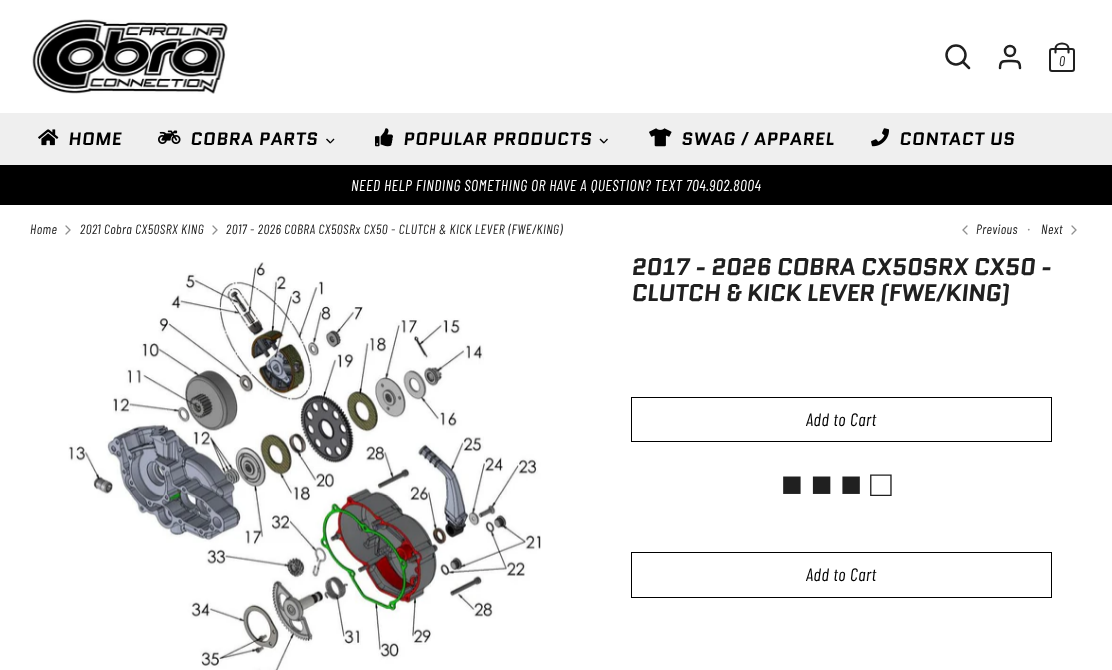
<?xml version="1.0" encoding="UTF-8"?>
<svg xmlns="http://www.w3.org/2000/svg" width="1112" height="670">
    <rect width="100%" height="100%" fill="#FFFFFF"/>
    <image x="30" y="19" width="198" height="75" href="img_01.png"/>
    <circle cx="956" cy="55" r="9.5" fill="none" stroke="#202020" stroke-width="2.5"/>
    <path d="M 969 68 L 963 62 M 1020 68 C 1020 60.5 1017 61 1010 61 C 1003 61 1000 60.5 1000 68" fill="none" stroke="#202020" stroke-width="2.5" stroke-linecap="round"/>
    <circle cx="1010" cy="51" r="5" fill="none" stroke="#202020" stroke-width="2.5"/>
    <rect x="1050" y="49" width="24" height="22" rx="2" fill="none" stroke="#202020" stroke-width="2"/>
    <path d="M 1055.5 52.5 V 48.5 C 1055.5 45.5 1058.5 43.5 1062 43.5 C 1065.5 43.5 1068.5 45.5 1068.5 48.5 V 52.5" fill="none" stroke="#202020" stroke-width="2.1" stroke-linecap="round"/>
    <text x="1059" y="66" font-family="Barlow Condensed" font-size="14" font-style="italic" fill="#202020">0</text>
    <rect x="0" y="113" width="1112" height="52" fill="#EFEFEF"/>
    <image x="38" y="129" width="21" height="17" href="img_02.png"/>
    <text x="68" y="145" font-family="Quantico" font-size="18" font-weight="700" font-style="italic" letter-spacing="0.45" fill="#000000">HOME</text>
    <image x="158" y="130" width="23" height="14" href="img_03.png"/>
    <text x="190" y="145" font-family="Quantico" font-size="18" font-weight="700" font-style="italic" letter-spacing="0.45" fill="#000000">COBRA PARTS</text>
    <path d="M 333.5 138.5 L 334.5 139.5 L 330.5 143.5 L 330 142.5 Z" fill="#000000"/>
    <path d="M 327 138.5 L 331 142.5 L 330 143.5 L 326 139.5 Z" fill="#000000"/>
    <image x="375" y="128" width="18" height="19" href="img_04.png"/>
    <text x="403" y="145" font-family="Quantico" font-size="18" font-weight="700" font-style="italic" letter-spacing="0.45" fill="#000000">POPULAR PRODUCTS</text>
    <path d="M 607 138.5 L 608 139.5 L 604 143.5 L 603.5 142.5 Z" fill="#000000"/>
    <path d="M 600.5 138.5 L 604.5 142.5 L 603.5 143.5 L 599.5 139.5 Z" fill="#000000"/>
    <image x="649" y="128" width="23" height="19" href="img_05.png"/>
    <text x="681" y="145" font-family="Quantico" font-size="18" font-weight="700" font-style="italic" letter-spacing="0.45" fill="#000000">SWAG / APPAREL</text>
    <image x="871" y="128" width="18" height="19" href="img_06.png"/>
    <text x="899" y="145" font-family="Quantico" font-size="18" font-weight="700" font-style="italic" letter-spacing="0.45" fill="#000000">CONTACT US</text>
    <rect x="0" y="165" width="1112" height="40" fill="#000000"/>
    <text x="351" y="191" font-family="Barlow Condensed" font-size="15.75" font-style="italic" letter-spacing="0.45" fill="#FFFFFF">NEED HELP FINDING SOMETHING OR HAVE A QUESTION? TEXT 704.902.8004</text>
    <text x="30" y="234" font-family="Barlow Condensed" font-size="13.5" font-style="italic" letter-spacing="0.45" fill="#202020">Home</text>
    <path d="M 66 234 L 70 230 L 66 226" fill="none" stroke="#909090" stroke-width="1.3" stroke-linecap="round"/>
    <text x="80" y="234" font-family="Barlow Condensed" font-size="13.5" font-style="italic" letter-spacing="0.45" fill="#202020">2021 Cobra CX50SRX KING</text>
    <path d="M 213 234 L 217 230 L 213 226" fill="none" stroke="#909090" stroke-width="1.3" stroke-linecap="round"/>
    <text x="226" y="234" font-family="Barlow Condensed" font-size="13.5" font-style="italic" letter-spacing="0.45" fill="#202020">2017 - 2026 COBRA CX50SRx CX50 - CLUTCH &amp; KICK LEVER (FWE/KING)</text>
    <path d="M 967 234 L 963 230 L 967 226" fill="none" stroke="#909090" stroke-width="1.3" stroke-linecap="round"/>
    <text x="976" y="234" font-family="Barlow Condensed" font-size="13.5" font-style="italic" letter-spacing="0.45" fill="#202020">Previous</text>
    <text x="1027" y="234" font-family="Barlow Condensed" font-size="16" font-style="italic" letter-spacing="0.45" fill="#909090">·</text>
    <text x="1041" y="234" font-family="Barlow Condensed" font-size="13.5" font-style="italic" letter-spacing="0.45" fill="#202020">Next</text>
    <path d="M 1072 234 L 1076 230 L 1072 226" fill="none" stroke="#909090" stroke-width="1.3" stroke-linecap="round"/>
    <image x="68" y="262" width="473" height="408" href="img_07.png"/>
    <text font-family="Quantico" font-size="24" font-weight="700" font-style="italic" letter-spacing="-0.6" fill="#202020">
        <tspan x="631" y="275">2017 - 2026 COBRA CX50SRX CX50 -</tspan>
        <tspan x="631" y="301">CLUTCH &amp; KICK LEVER (FWE/KING)</tspan>
    </text>
    <rect x="631.5" y="397.5" width="420" height="44" fill="none" stroke="#000000"/>
    <text x="806" y="426" font-family="Barlow Condensed" font-size="18" font-style="italic" letter-spacing="0.45" fill="#000000">Add to Cart</text>
    <text x="781" y="496" word-spacing="-3" font-family="Liberation Sans" font-size="36" font-style="italic" letter-spacing="0.45" fill="#202020">■ ■ ■ □</text>
    <rect x="631.5" y="552.5" width="420" height="45" fill="none" stroke="#000000"/>
    <text x="806" y="581" font-family="Barlow Condensed" font-size="18" font-style="italic" letter-spacing="0.45" fill="#000000">Add to Cart</text>
</svg>
